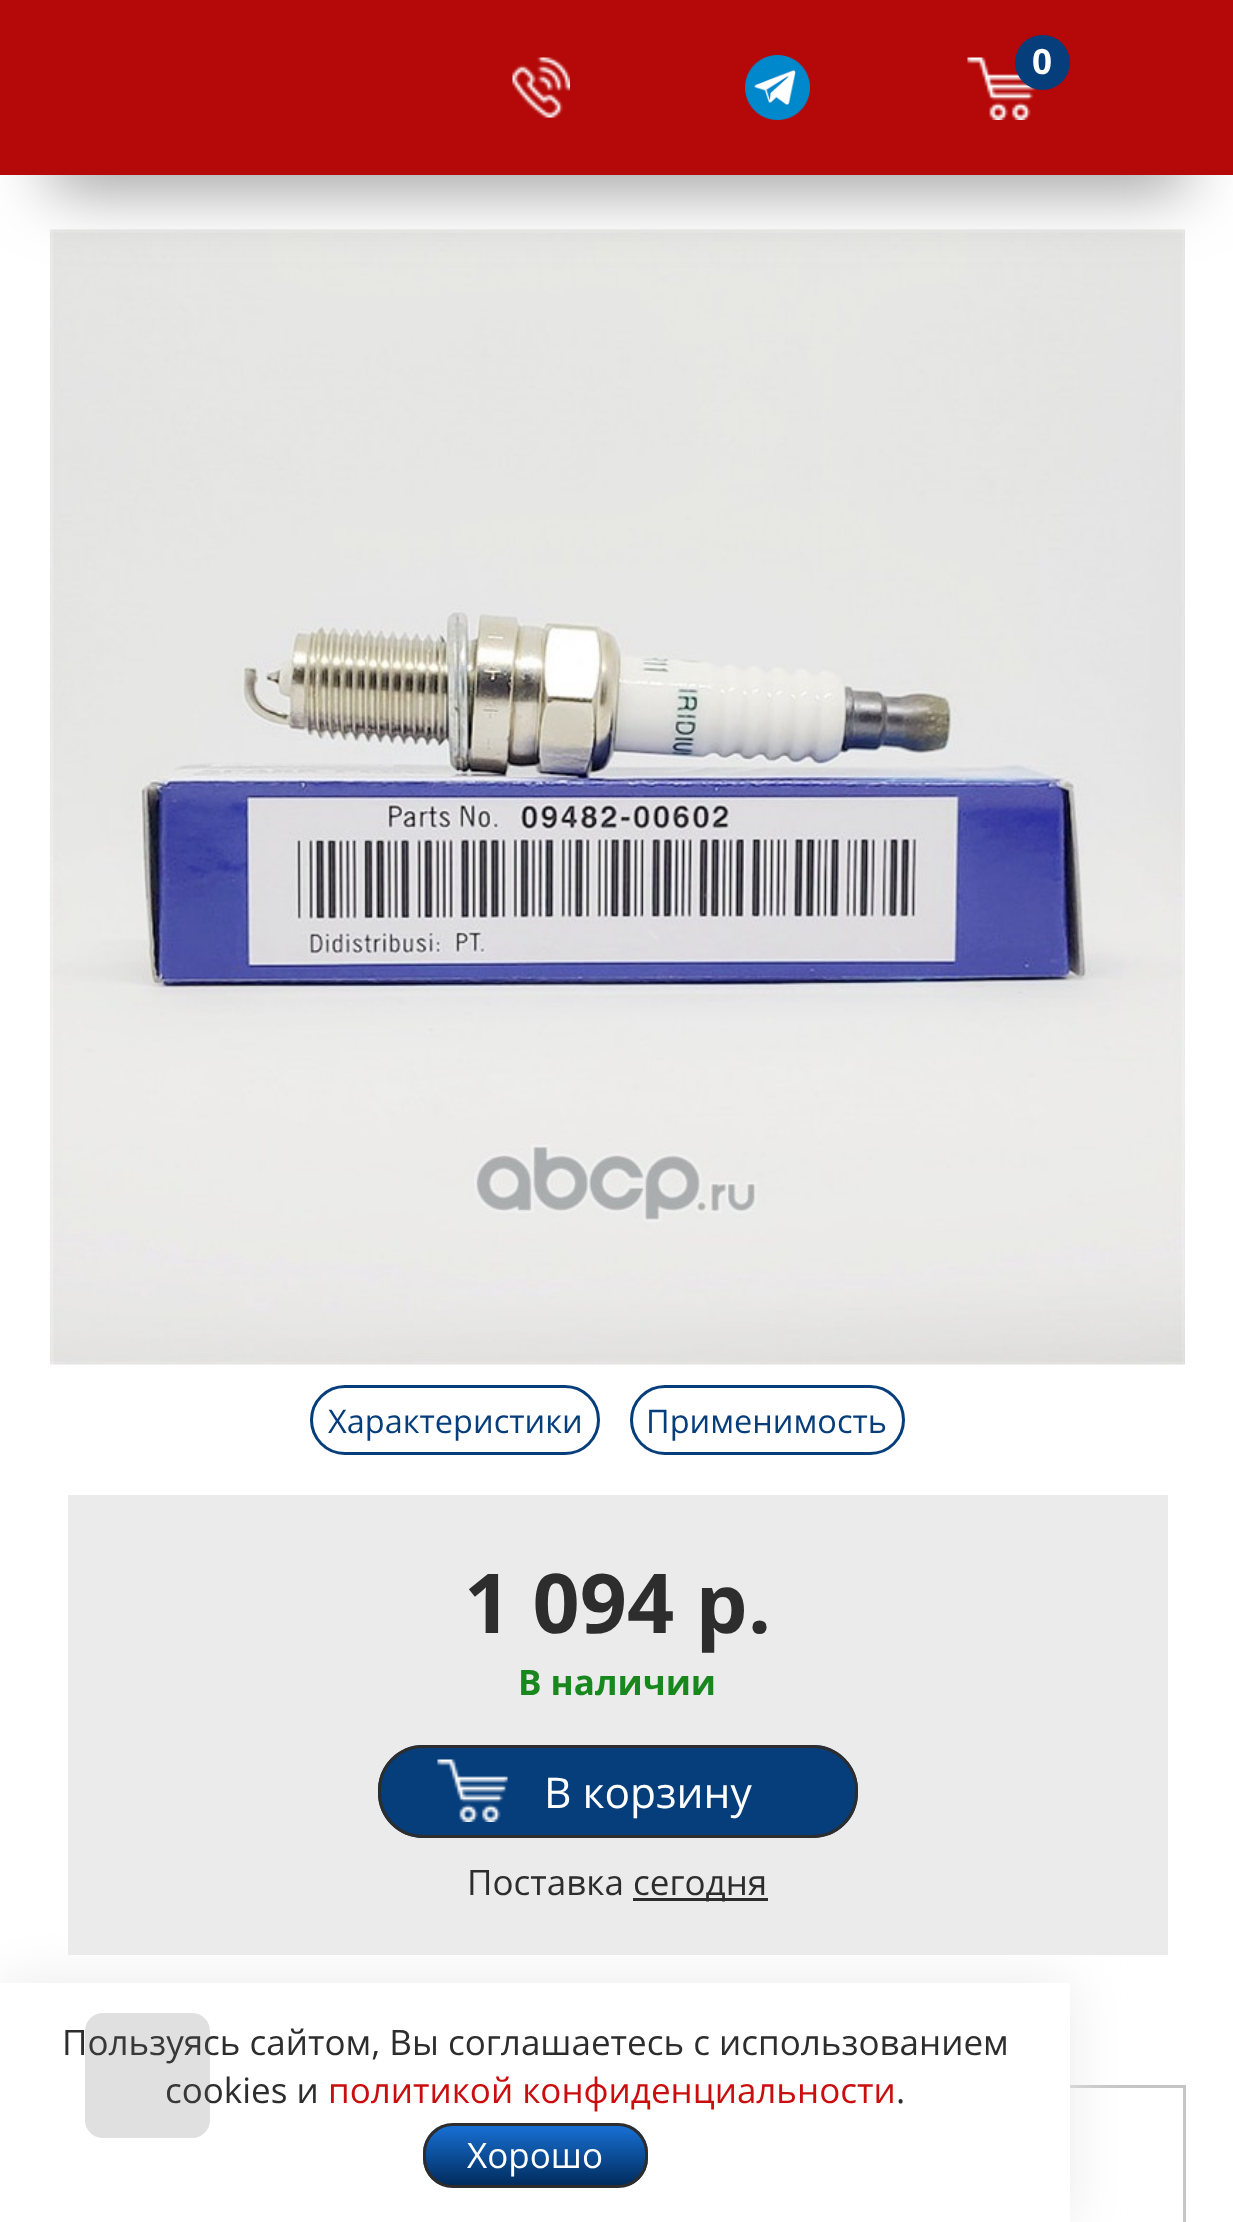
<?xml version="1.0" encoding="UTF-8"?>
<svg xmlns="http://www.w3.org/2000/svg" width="1233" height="2222">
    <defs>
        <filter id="blur1" x="-50%" y="-200%" width="200%" height="500%"><feGaussianBlur stdDeviation="32.5"/></filter>
        <filter id="blur2" x="-50%" y="-200%" width="200%" height="500%"><feGaussianBlur stdDeviation="27.5"/></filter>
        <clipPath id="clip1"><rect x="423" y="2123" width="225" height="65" rx="30"/></clipPath>
        <linearGradient id="g1" gradientUnits="userSpaceOnUse" x1="535" y1="2185" x2="535" y2="2125"><stop offset="0" stop-color="#012C5D"/><stop offset="1" stop-color="#1871D6"/></linearGradient>
    </defs>
    <rect width="100%" height="100%" fill="#FFFFFF"/>
    <image x="50" y="229" width="1135" height="1136" href="img_04.png"/>
    <rect x="50" y="115" width="1135" height="75" fill="#9F9F9F" filter="url(#blur1)"/>
    <rect x="0" y="0" width="1233" height="175" fill="#B50808"/>
    <image x="512" y="57" width="58" height="61" href="img_01.png"/>
    <image x="745" y="55" width="65" height="65" href="img_02.png"/>
    <image x="967" y="57" width="69" height="63" href="img_03.png"/>
    <circle cx="1042.5" cy="62.5" r="27.5" fill="#063D7B"/>
    <text x="1032" y="74" font-family="Open Sans" font-size="35" font-weight="700" fill="#FFFFFF">0</text>
    <rect x="311.5" y="1386.5" width="287" height="67" rx="33.5" fill="none" stroke="#063D7B" stroke-width="3"/>
    <text x="328" y="1433" font-family="Open Sans" font-size="32.5" fill="#063D7B">Характеристики</text>
    <rect x="631.5" y="1386.5" width="272" height="67" rx="33.5" fill="none" stroke="#063D7B" stroke-width="3"/>
    <text x="646" y="1433" font-family="Open Sans" font-size="32.5" fill="#063D7B">Применимость</text>
    <rect x="68" y="1495" width="1100" height="460" fill="#EBEBEB"/>
    <text x="464" y="1633" font-family="Open Sans" font-size="82.5" font-weight="700" fill="#2D2D2D">1 094 р.</text>
    <text x="518" y="1695" font-family="Open Sans" font-size="35" font-weight="700" fill="#18871D">В наличии</text>
    <rect x="378" y="1745" width="480" height="93" rx="45" fill="#063D7B"/>
    <image x="437" y="1759" width="71" height="63" href="img_05.png"/>
    <rect x="379.5" y="1746.5" width="477" height="90" rx="43.5" fill="none" stroke="#2D2D2D" stroke-width="3"/>
    <text x="544" y="1808" font-family="Open Sans" font-size="42.5" fill="#FFFFFF">В корзину</text>
    <text x="467" y="1895" font-family="Open Sans" font-size="35" fill="#2D2D2D">Поставка</text>
    <rect x="633" y="1898" width="135" height="3" fill="#2D2D2D"/>
    <text x="633" y="1895" font-family="Open Sans" font-size="35" fill="#2D2D2D">сегодня</text>
    <rect x="1070" y="2085" width="115" height="3" fill="#C5C5C5"/>
    <rect x="1183" y="2085" width="3" height="137" fill="#C5C5C5"/>
    <rect x="0" y="1983" width="1070" height="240" fill="#EAEAEA" filter="url(#blur2)"/>
    <rect x="0" y="1983" width="1070" height="239" fill="#FFFFFF"/>
    <text x="62" y="2055" font-family="Open Sans" font-size="35" fill="#2D2D2D">Пользуясь сайтом, Вы соглашаетесь с использованием</text>
    <text x="165" y="2103" font-family="Open Sans" font-size="35" fill="#2D2D2D">cookies и</text>
    <rect x="85" y="2013" width="125" height="125" rx="18" fill="#666666" fill-opacity="0.2"/>
    <text x="328" y="2103" font-family="Open Sans" font-size="35" fill="#CA0D0D">политикой конфиденциальности</text>
    <text x="896" y="2103" font-family="Open Sans" font-size="35" fill="#2D2D2D">.</text>
    <g clip-path="url(#clip1)">
        <rect x="423" y="2125" width="225" height="60" fill="url(#g1)"/>
    </g>
    <rect x="424.5" y="2124.5" width="222" height="62" rx="28.5" fill="none" stroke="#2D2D2D" stroke-width="3"/>
    <text x="467" y="2168" font-family="Open Sans" font-size="35" fill="#FFFFFF">Хорошо</text>
</svg>
